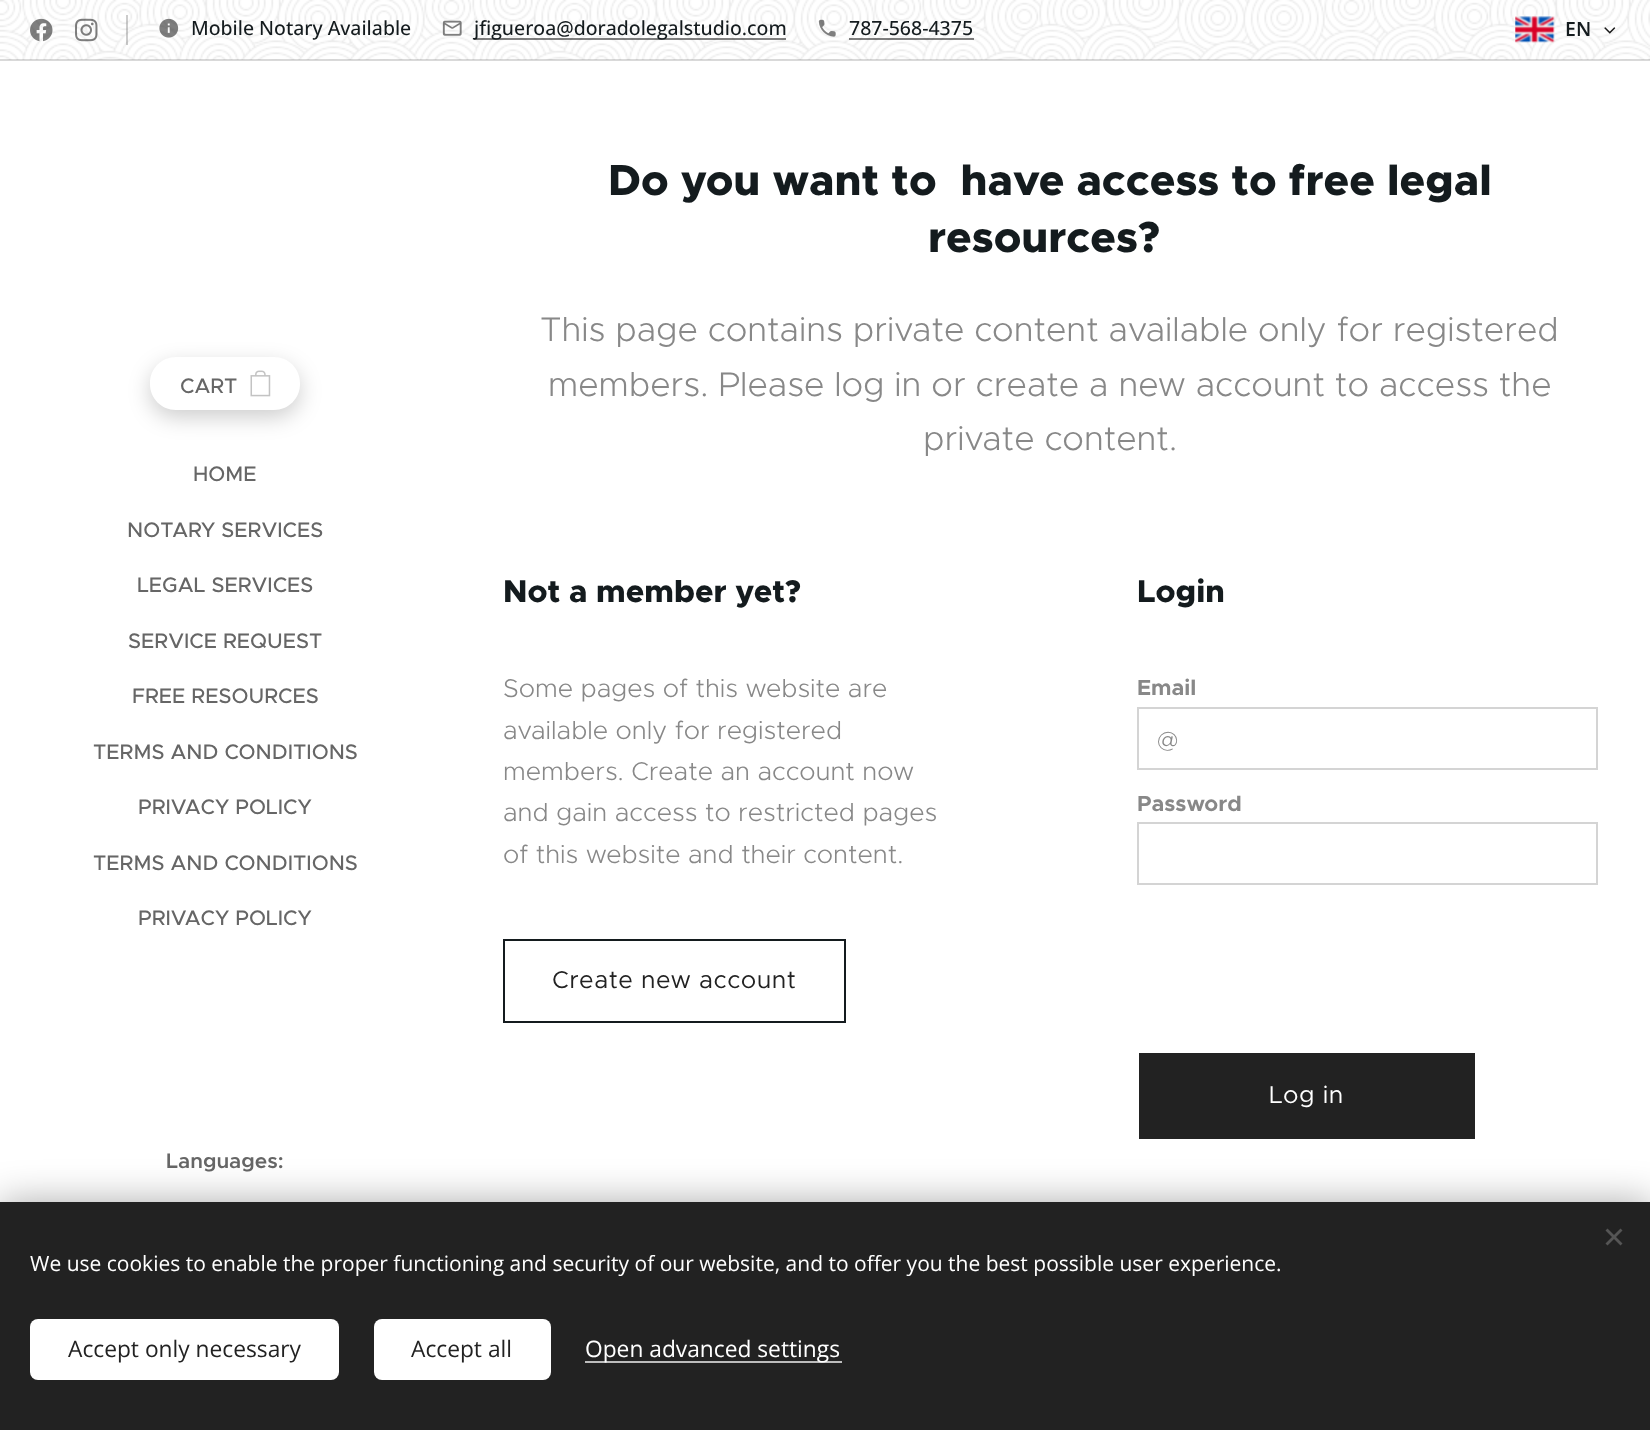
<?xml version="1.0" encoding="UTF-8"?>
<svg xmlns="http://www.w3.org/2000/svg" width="1650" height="1430">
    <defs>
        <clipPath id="clip1"><path d="M 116 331 H 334 V 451 H 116 Z M 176 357 H 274 C 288.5 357 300 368.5 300 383 V 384 C 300 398.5 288.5 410 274 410 H 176 C 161.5 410 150 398.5 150 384 V 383 C 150 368.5 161.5 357 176 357 Z" clip-rule="evenodd"/></clipPath>
        <filter id="blur1" x="-50%" y="-200%" width="200%" height="500%"><feGaussianBlur stdDeviation="11"/></filter>
        <filter id="blur2" x="-50%" y="-200%" width="200%" height="500%"><feGaussianBlur stdDeviation="19"/></filter>
    </defs>
    <rect width="100%" height="100%" fill="#FFFFFF"/>
    <image x="0" y="0" width="1650" height="60" href="img_01.png"/>
    <image x="30" y="18" width="23" height="24" href="img_02.png"/>
    <image x="75" y="18" width="23" height="24" href="img_03.png"/>
    <rect x="126" y="15" width="2" height="30" fill="#000000" fill-opacity="0.2"/>
    <image x="159" y="18" width="20" height="20" href="img_04.png"/>
    <text x="191" y="35" font-family="Open Sans" font-size="19.5" font-weight="500" fill="#141B1E">Mobile Notary Available</text>
    <image x="442" y="20" width="20" height="16" href="img_05.png"/>
    <rect x="474" y="38" width="312" height="2" fill="#000000" fill-opacity="0.5"/>
    <text x="474" y="35" font-family="Open Sans" font-size="19.5" font-weight="500" fill="#141B1E">jfigueroa@doradolegalstudio.com</text>
    <image x="818" y="19" width="18" height="18" href="img_06.png"/>
    <text x="849" y="35" font-family="Open Sans" font-size="19.5" font-weight="500" fill="#141B1E">787-568-4375</text>
    <rect x="849" y="38" width="125" height="2" fill="#000000" fill-opacity="0.5"/>
    <image x="1515" y="16" width="40" height="27" href="img_07.png"/>
    <text x="1565" y="36" font-family="Open Sans" font-size="19.5" font-weight="600" fill="#141B1E">EN</text>
    <image x="1604" y="27" width="12" height="7" href="img_08.png"/>
    <rect x="0" y="59" width="1650" height="2" fill="#000000" fill-opacity="0.15"/>
    <g clip-path="url(#clip1)">
        <rect x="150" y="365" width="150" height="52" rx="26" fill="#000000" fill-opacity="0.2" filter="url(#blur1)"/>
    </g>
    <rect x="150" y="357" width="150" height="53" rx="26" fill="#FFFFFF" fill-opacity="0.2"/>
    <text x="180" y="393" font-family="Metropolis" font-size="21" font-weight="500" fill="#666666">CART</text>
    <image x="250" y="370" width="21" height="27" href="img_09.png"/>
    <text x="193" y="481" font-family="Metropolis" font-size="21" font-weight="500" fill="#666666">HOME</text>
    <text x="127" y="537" font-family="Metropolis" font-size="21" font-weight="500" fill="#666666">NOTARY SERVICES</text>
    <text x="137" y="592" font-family="Metropolis" font-size="21" font-weight="500" fill="#666666">LEGAL SERVICES</text>
    <text x="128" y="648" font-family="Metropolis" font-size="21" font-weight="500" fill="#666666">SERVICE REQUEST</text>
    <text x="132" y="703" font-family="Metropolis" font-size="21" font-weight="500" fill="#666666">FREE RESOURCES</text>
    <text x="93" y="759" font-family="Metropolis" font-size="21" font-weight="500" fill="#666666">TERMS AND CONDITIONS</text>
    <text x="138" y="814" font-family="Metropolis" font-size="21" font-weight="500" fill="#666666">PRIVACY POLICY</text>
    <text x="93" y="870" font-family="Metropolis" font-size="21" font-weight="500" fill="#666666">TERMS AND CONDITIONS</text>
    <text x="138" y="925" font-family="Metropolis" font-size="21" font-weight="500" fill="#666666">PRIVACY POLICY</text>
    <text x="608" y="195" font-family="Metropolis" font-size="43.5" font-weight="800" fill="#141B1E" xml:space="preserve">Do you want to  have access to free legal</text>
    <text x="928" y="252" font-family="Metropolis" font-size="43.5" font-weight="800" fill="#141B1E">resources?</text>
    <text x="540" y="341" font-family="Metropolis" font-size="34.2" font-weight="300" fill="#888888">This page contains private content available only for registered</text>
    <text x="548" y="396" font-family="Metropolis" font-size="34.2" font-weight="300" fill="#888888">members. Please log in or create a new account to access the</text>
    <text x="923" y="450" font-family="Metropolis" font-size="34.2" font-weight="300" fill="#888888">private content.</text>
    <text x="503" y="602" font-family="Metropolis" font-size="31.5" font-weight="800" fill="#141B1E">Not a member yet?</text>
    <text font-family="Metropolis" font-size="25.75" font-weight="300" fill="#888888">
        <tspan x="503" y="697">Some pages of this website are</tspan>
        <tspan x="503" y="739">available only for registered</tspan>
        <tspan x="503" y="780">members. Create an account now</tspan>
        <tspan x="503" y="821">and gain access to restricted pages</tspan>
        <tspan x="503" y="863">of this website and their content.</tspan>
    </text>
    <rect x="504" y="940" width="341" height="82" fill="none" stroke="#141B1E" stroke-width="2"/>
    <text x="552" y="988" font-family="Metropolis" font-size="24.5" letter-spacing="0.5" fill="#222222">Create new account</text>
    <text x="1137" y="602" font-family="Metropolis" font-size="31.5" font-weight="800" fill="#141B1E">Login</text>
    <text x="1137" y="695" font-family="Metropolis" font-size="22" font-weight="700" fill="#888888">Email</text>
    <rect x="1138" y="708" width="459" height="61" fill="none" stroke="#D4D4D4" stroke-width="2"/>
    <text x="1157" y="748" font-family="Metropolis" font-size="24" font-weight="300" fill="#888888">@</text>
    <text x="1137" y="811" font-family="Metropolis" font-size="22" font-weight="700" fill="#888888">Password</text>
    <rect x="1138" y="823" width="459" height="61" fill="none" stroke="#D4D4D4" stroke-width="2"/>
    <rect x="1139" y="1053" width="336" height="86" fill="#222222"/>
    <text x="1269" y="1103" font-family="Metropolis" font-size="24.5" letter-spacing="0.5" fill="#FFFFFF">Log in</text>
    <text x="166" y="1168" font-family="Metropolis" font-size="21" font-weight="600" fill="#666666">Languages:</text>
    <rect x="0" y="1202" width="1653" height="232" fill="#000000" fill-opacity="0.33" filter="url(#blur2)"/>
    <rect x="0" y="1202" width="1650" height="228" fill="#222222"/>
    <path d="M 1605.5 1243.5 L 1620.5 1228.5 L 1622.5 1230.5 L 1607.5 1245.5 Z" fill="#555555"/>
    <path d="M 1607.5 1228.5 L 1622.5 1243.5 L 1620.5 1245.5 L 1605.5 1230.5 Z" fill="#555555"/>
    <text x="30" y="1271" font-family="Open Sans" font-size="21" fill="#FFFFFF">We use cookies to enable the proper functioning and security of our website, and to offer you the best possible user experience.</text>
    <rect x="30" y="1319" width="309" height="61" rx="8" fill="#FFFFFF"/>
    <text x="68" y="1357" font-family="Open Sans" font-size="22.75" fill="#222222">Accept only necessary</text>
    <rect x="374" y="1319" width="177" height="61" rx="8" fill="#FFFFFF"/>
    <text x="411" y="1357" font-family="Open Sans" font-size="22.75" fill="#222222">Accept all</text>
    <rect x="585" y="1361" width="257" height="2" fill="#BDBDBD"/>
    <text x="585" y="1357" font-family="Open Sans" font-size="22.75" fill="#FFFFFF">Open advanced settings</text>
</svg>
